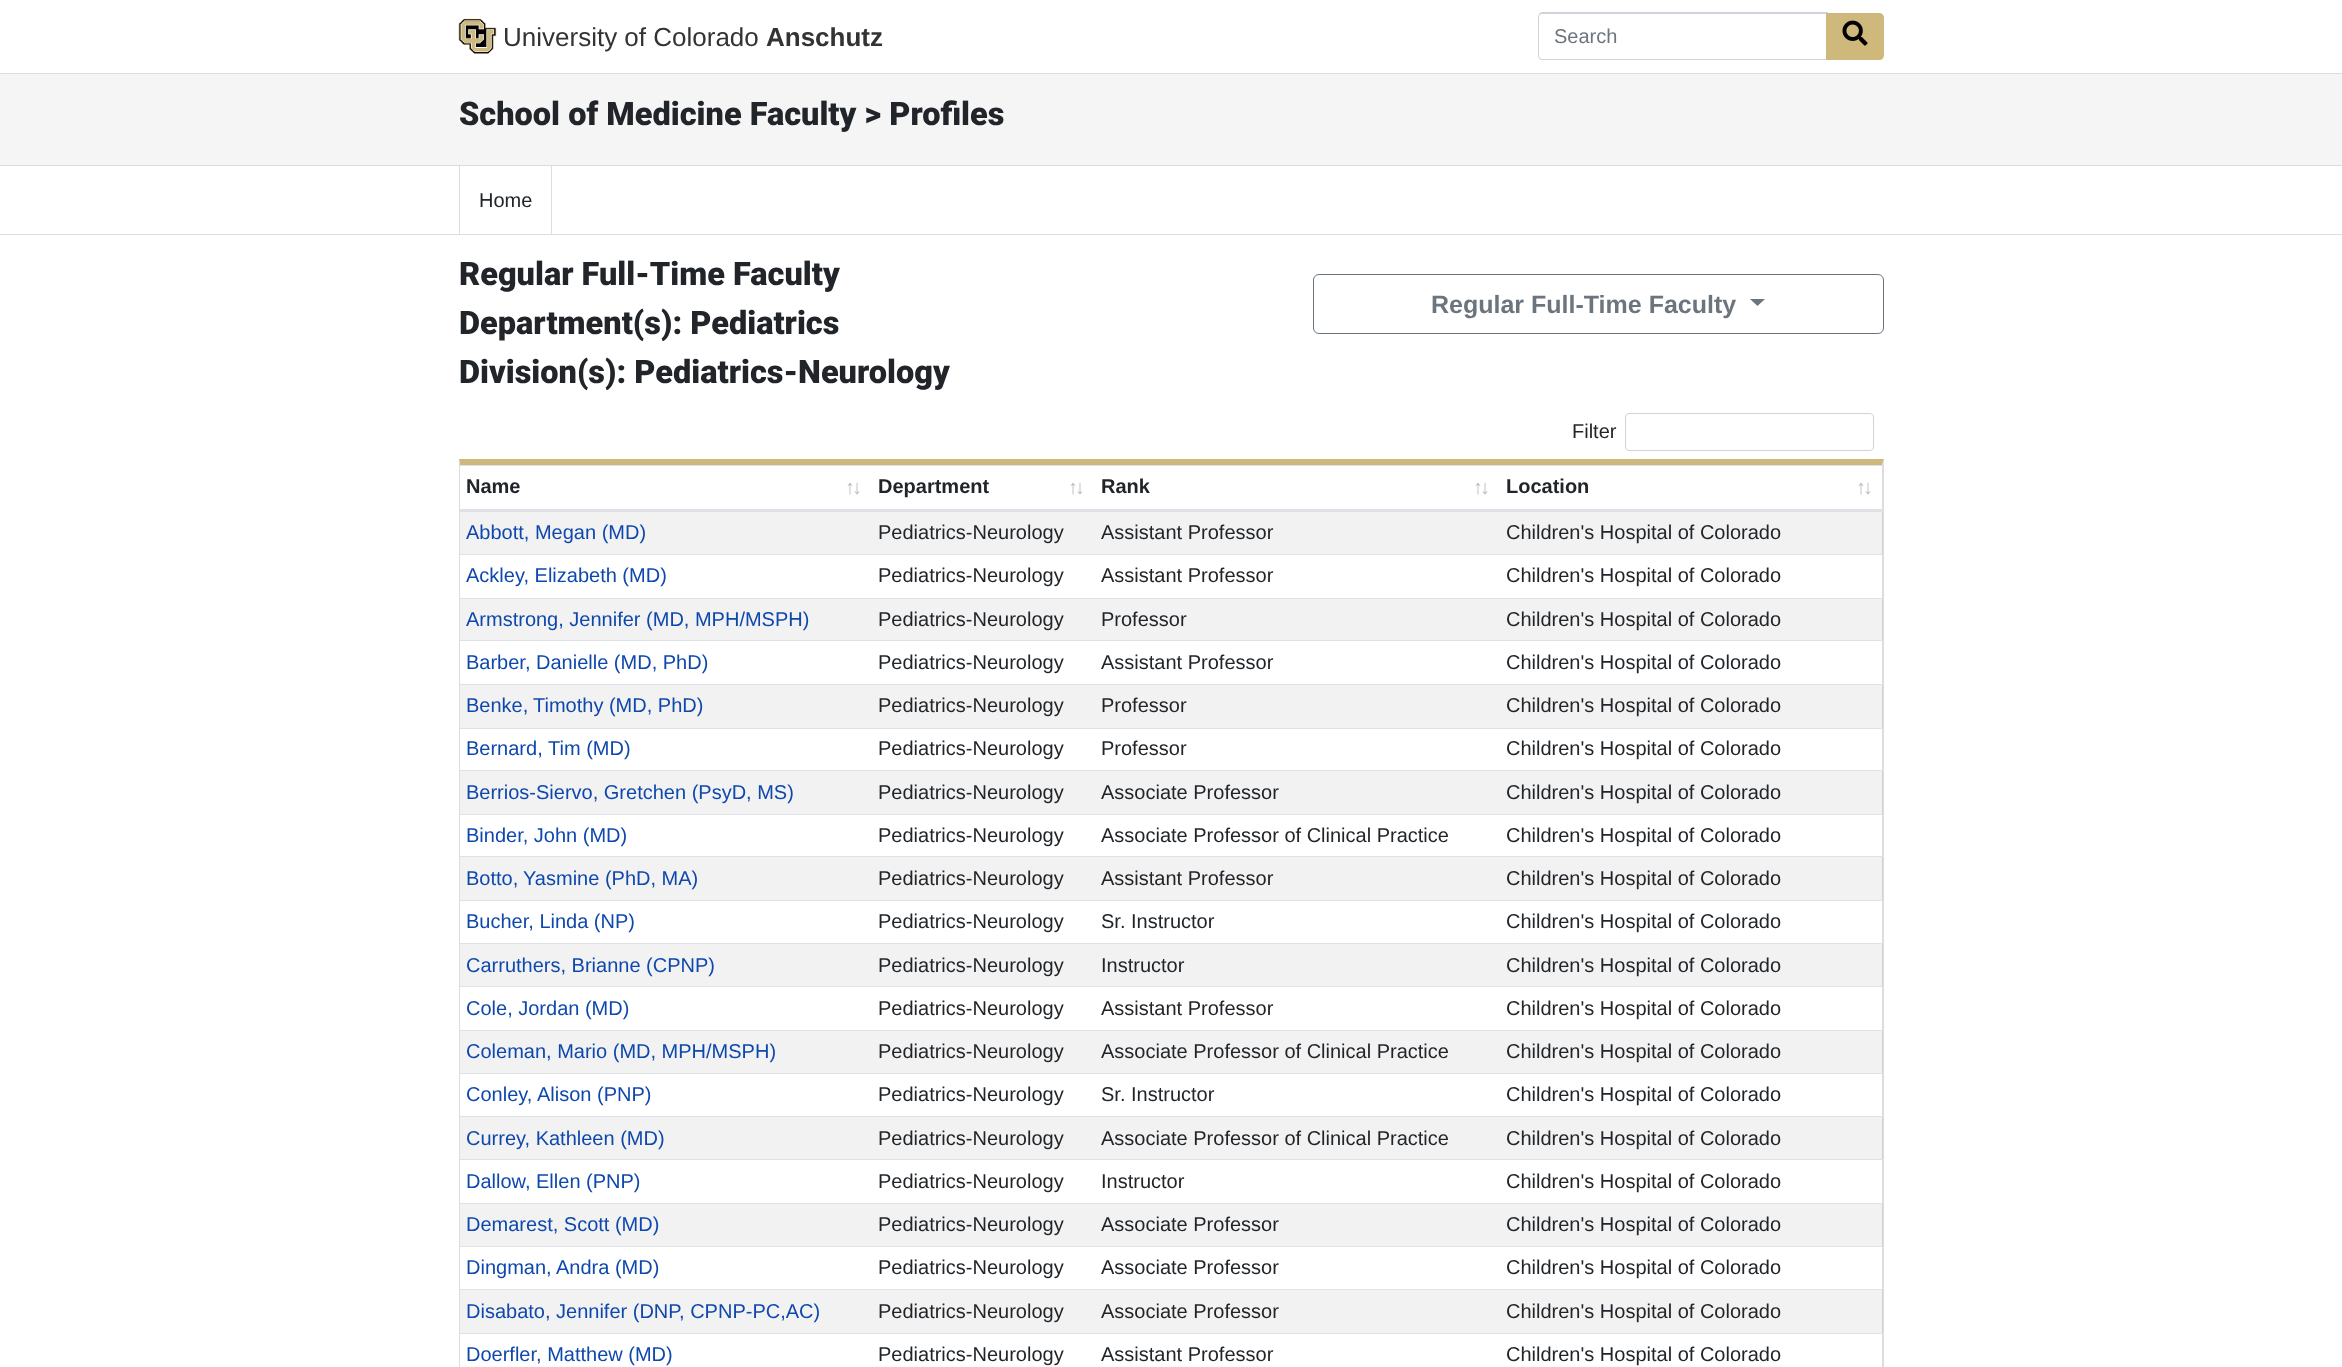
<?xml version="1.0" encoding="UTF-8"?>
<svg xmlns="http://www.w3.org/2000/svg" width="2342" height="1367">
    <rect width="100%" height="100%" fill="#FFFFFF"/>
    <rect x="0" y="73" width="2342" height="1" fill="#DDDDDD"/>
    <image x="458" y="18" width="39" height="37" href="img_01.png"/>
    <text x="503" y="46" font-family="Liberation Sans" font-size="26" fill="#333333">University of Colorado</text>
    <text x="766" y="46" font-family="Liberation Sans" font-size="26" font-weight="700" fill="#333333">Anschutz</text>
    <path d="M 1542 12 H 1828 V 60 H 1542 C 1540 60 1538 58 1538 55 V 18 C 1538 15 1540 12 1542 12 Z M 1542 14 H 1828 V 59 H 1542 C 1540 59 1539 57 1539 55 V 18 C 1539 15 1540 14 1542 14 Z" fill="#CED4DA" fill-rule="evenodd"/>
    <text x="1554" y="43" font-family="Liberation Sans" font-size="20" fill="#6C757D">Search</text>
    <path d="M 1826 13 H 1879 C 1882 13 1884 15 1884 18 V 55 C 1884 58 1882 60 1879 60 H 1826 Z" fill="#CFB87C"/>
    <image x="1842" y="20" width="26" height="26" href="img_02.png"/>
    <rect x="0" y="74" width="2342" height="91" fill="#F5F5F5"/>
    <rect x="0" y="165" width="2342" height="1" fill="#DDDDDD"/>
    <text x="459" y="125" font-family="Roboto" font-size="32.5" font-weight="900" fill="#212529">School of Medicine Faculty &gt; Profiles</text>
    <rect x="0" y="234" width="2342" height="1" fill="#DDDDDD"/>
    <rect x="551" y="166" width="1" height="68" fill="#DDDDDD"/>
    <rect x="459" y="166" width="1" height="68" fill="#DDDDDD"/>
    <text x="479" y="207" font-family="Liberation Sans" font-size="20" fill="#212529">Home</text>
    <text font-family="Roboto" font-size="32.5" font-weight="900" fill="#212529">
        <tspan x="459" y="285">Regular Full-Time Faculty</tspan>
        <tspan x="459" y="334">Department(s): Pediatrics</tspan>
        <tspan x="459" y="383">Division(s): Pediatrics-Neurology</tspan>
    </text>
    <rect x="1313.5" y="274.5" width="570" height="59" rx="5.5" fill="none" stroke="#6C757D"/>
    <text x="1431" y="313" font-family="Liberation Sans" font-size="25" font-weight="700" fill="#6C757D">Regular Full-Time Faculty</text>
    <path d="M 1750 299 H 1765 L 1757.5 306 Z" fill="#6C757D"/>
    <text x="1572" y="438" font-family="Liberation Sans" font-size="20" fill="#212529">Filter</text>
    <rect x="1625.5" y="413.5" width="248" height="37" rx="3.5" fill="none" stroke="#CED4DA"/>
    <path d="M 459 459 H 1884 L 1882 465 H 460 Z" fill="#CFB87C"/>
    <path d="M 1884 459 V 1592 L 1882 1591 V 465 Z" fill="#DDDDDD"/>
    <path d="M 459 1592 V 459 L 460 465 V 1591 Z" fill="#DDDDDD"/>
    <rect x="460" y="465" width="1423" height="1" fill="#DEE2E6"/>
    <rect x="460" y="509" width="1423" height="3" fill="#DEE2E6"/>
    <text x="466" y="493" font-family="Liberation Sans" font-size="20" font-weight="700" fill="#212529">Name</text>
    <text x="845" y="494" font-family="Liberation Sans" font-size="20" font-weight="700" fill="#BCBEBF">↑</text>
    <text x="852" y="494" font-family="Liberation Sans" font-size="20" font-weight="700" fill="#BCBEBF">↓</text>
    <text x="878" y="493" font-family="Liberation Sans" font-size="20" font-weight="700" fill="#212529">Department</text>
    <text x="1068" y="494" font-family="Liberation Sans" font-size="20" font-weight="700" fill="#BCBEBF">↑</text>
    <text x="1075" y="494" font-family="Liberation Sans" font-size="20" font-weight="700" fill="#BCBEBF">↓</text>
    <text x="1101" y="493" font-family="Liberation Sans" font-size="20" font-weight="700" fill="#212529">Rank</text>
    <text x="1473" y="494" font-family="Liberation Sans" font-size="20" font-weight="700" fill="#BCBEBF">↑</text>
    <text x="1480" y="494" font-family="Liberation Sans" font-size="20" font-weight="700" fill="#BCBEBF">↓</text>
    <text x="1506" y="493" font-family="Liberation Sans" font-size="20" font-weight="700" fill="#212529">Location</text>
    <text x="1856" y="494" font-family="Liberation Sans" font-size="20" font-weight="700" fill="#BCBEBF">↑</text>
    <text x="1863" y="494" font-family="Liberation Sans" font-size="20" font-weight="700" fill="#BCBEBF">↓</text>
    <rect x="460" y="512" width="1423" height="42" fill="#000000" fill-opacity="0.05"/>
    <text x="466" y="539" font-family="Liberation Sans" font-size="20" fill="#0E48AD">Abbott, Megan (MD)</text>
    <text x="878" y="539" font-family="Liberation Sans" font-size="20" fill="#212529">Pediatrics-Neurology</text>
    <text x="1101" y="539" font-family="Liberation Sans" font-size="20" fill="#212529">Assistant Professor</text>
    <text x="1506" y="539" font-family="Liberation Sans" font-size="20" fill="#212529">Children's Hospital of Colorado</text>
    <rect x="460" y="554" width="1423" height="1" fill="#DEE2E6"/>
    <text x="466" y="582" font-family="Liberation Sans" font-size="20" fill="#0E48AD">Ackley, Elizabeth (MD)</text>
    <text x="878" y="582" font-family="Liberation Sans" font-size="20" fill="#212529">Pediatrics-Neurology</text>
    <text x="1101" y="582" font-family="Liberation Sans" font-size="20" fill="#212529">Assistant Professor</text>
    <text x="1506" y="582" font-family="Liberation Sans" font-size="20" fill="#212529">Children's Hospital of Colorado</text>
    <rect x="460" y="599" width="1423" height="41" fill="#000000" fill-opacity="0.05"/>
    <rect x="460" y="598" width="1423" height="1" fill="#DEE2E6"/>
    <text x="466" y="626" font-family="Liberation Sans" font-size="20" fill="#0E48AD">Armstrong, Jennifer (MD, MPH/MSPH)</text>
    <text x="878" y="626" font-family="Liberation Sans" font-size="20" fill="#212529">Pediatrics-Neurology</text>
    <text x="1101" y="626" font-family="Liberation Sans" font-size="20" fill="#212529">Professor</text>
    <text x="1506" y="626" font-family="Liberation Sans" font-size="20" fill="#212529">Children's Hospital of Colorado</text>
    <rect x="460" y="640" width="1423" height="1" fill="#DEE2E6"/>
    <text x="466" y="669" font-family="Liberation Sans" font-size="20" fill="#0E48AD">Barber, Danielle (MD, PhD)</text>
    <text x="878" y="669" font-family="Liberation Sans" font-size="20" fill="#212529">Pediatrics-Neurology</text>
    <text x="1101" y="669" font-family="Liberation Sans" font-size="20" fill="#212529">Assistant Professor</text>
    <text x="1506" y="669" font-family="Liberation Sans" font-size="20" fill="#212529">Children's Hospital of Colorado</text>
    <rect x="460" y="685" width="1423" height="43" fill="#000000" fill-opacity="0.05"/>
    <rect x="460" y="684" width="1423" height="1" fill="#DEE2E6"/>
    <text x="466" y="712" font-family="Liberation Sans" font-size="20" fill="#0E48AD">Benke,</text>
    <text x="533" y="712" font-family="Liberation Sans" font-size="20" fill="#0E48AD">Timothy (MD, PhD)</text>
    <text x="878" y="712" font-family="Liberation Sans" font-size="20" fill="#212529">Pediatrics-Neurology</text>
    <text x="1101" y="712" font-family="Liberation Sans" font-size="20" fill="#212529">Professor</text>
    <text x="1506" y="712" font-family="Liberation Sans" font-size="20" fill="#212529">Children's Hospital of Colorado</text>
    <rect x="460" y="728" width="1423" height="1" fill="#DEE2E6"/>
    <text x="466" y="755" font-family="Liberation Sans" font-size="20" fill="#0E48AD">Bernard,</text>
    <text x="548" y="755" font-family="Liberation Sans" font-size="20" fill="#0E48AD">Tim (MD)</text>
    <text x="878" y="755" font-family="Liberation Sans" font-size="20" fill="#212529">Pediatrics-Neurology</text>
    <text x="1101" y="755" font-family="Liberation Sans" font-size="20" fill="#212529">Professor</text>
    <text x="1506" y="755" font-family="Liberation Sans" font-size="20" fill="#212529">Children's Hospital of Colorado</text>
    <rect x="460" y="771" width="1423" height="43" fill="#000000" fill-opacity="0.05"/>
    <rect x="460" y="770" width="1423" height="1" fill="#DEE2E6"/>
    <text x="466" y="799" font-family="Liberation Sans" font-size="20" fill="#0E48AD">Berrios-Siervo, Gretchen (PsyD, MS)</text>
    <text x="878" y="799" font-family="Liberation Sans" font-size="20" fill="#212529">Pediatrics-Neurology</text>
    <text x="1101" y="799" font-family="Liberation Sans" font-size="20" fill="#212529">Associate Professor</text>
    <text x="1506" y="799" font-family="Liberation Sans" font-size="20" fill="#212529">Children's Hospital of Colorado</text>
    <rect x="460" y="814" width="1423" height="1" fill="#DEE2E6"/>
    <text x="466" y="842" font-family="Liberation Sans" font-size="20" fill="#0E48AD">Binder, John (MD)</text>
    <text x="878" y="842" font-family="Liberation Sans" font-size="20" fill="#212529">Pediatrics-Neurology</text>
    <text x="1101" y="842" font-family="Liberation Sans" font-size="20" fill="#212529">Associate Professor of Clinical Practice</text>
    <text x="1506" y="842" font-family="Liberation Sans" font-size="20" fill="#212529">Children's Hospital of Colorado</text>
    <rect x="460" y="857" width="1423" height="43" fill="#000000" fill-opacity="0.05"/>
    <rect x="460" y="856" width="1423" height="1" fill="#DEE2E6"/>
    <text x="466" y="885" font-family="Liberation Sans" font-size="20" fill="#0E48AD">Botto,</text>
    <text x="523" y="885" font-family="Liberation Sans" font-size="20" fill="#0E48AD">Yasmine (PhD, MA)</text>
    <text x="878" y="885" font-family="Liberation Sans" font-size="20" fill="#212529">Pediatrics-Neurology</text>
    <text x="1101" y="885" font-family="Liberation Sans" font-size="20" fill="#212529">Assistant Professor</text>
    <text x="1506" y="885" font-family="Liberation Sans" font-size="20" fill="#212529">Children's Hospital of Colorado</text>
    <rect x="460" y="900" width="1423" height="1" fill="#DEE2E6"/>
    <text x="466" y="928" font-family="Liberation Sans" font-size="20" fill="#0E48AD">Bucher, Linda (NP)</text>
    <text x="878" y="928" font-family="Liberation Sans" font-size="20" fill="#212529">Pediatrics-Neurology</text>
    <text x="1101" y="928" font-family="Liberation Sans" font-size="20" fill="#212529">Sr. Instructor</text>
    <text x="1506" y="928" font-family="Liberation Sans" font-size="20" fill="#212529">Children's Hospital of Colorado</text>
    <rect x="460" y="944" width="1423" height="42" fill="#000000" fill-opacity="0.05"/>
    <rect x="460" y="943" width="1423" height="1" fill="#DEE2E6"/>
    <text x="466" y="972" font-family="Liberation Sans" font-size="20" fill="#0E48AD">Carruthers, Brianne (CPNP)</text>
    <text x="878" y="972" font-family="Liberation Sans" font-size="20" fill="#212529">Pediatrics-Neurology</text>
    <text x="1101" y="972" font-family="Liberation Sans" font-size="20" fill="#212529">Instructor</text>
    <text x="1506" y="972" font-family="Liberation Sans" font-size="20" fill="#212529">Children's Hospital of Colorado</text>
    <rect x="460" y="986" width="1423" height="1" fill="#DEE2E6"/>
    <text x="466" y="1015" font-family="Liberation Sans" font-size="20" fill="#0E48AD">Cole, Jordan (MD)</text>
    <text x="878" y="1015" font-family="Liberation Sans" font-size="20" fill="#212529">Pediatrics-Neurology</text>
    <text x="1101" y="1015" font-family="Liberation Sans" font-size="20" fill="#212529">Assistant Professor</text>
    <text x="1506" y="1015" font-family="Liberation Sans" font-size="20" fill="#212529">Children's Hospital of Colorado</text>
    <rect x="460" y="1031" width="1423" height="42" fill="#000000" fill-opacity="0.05"/>
    <rect x="460" y="1030" width="1423" height="1" fill="#DEE2E6"/>
    <text x="466" y="1058" font-family="Liberation Sans" font-size="20" fill="#0E48AD">Coleman, Mario (MD, MPH/MSPH)</text>
    <text x="878" y="1058" font-family="Liberation Sans" font-size="20" fill="#212529">Pediatrics-Neurology</text>
    <text x="1101" y="1058" font-family="Liberation Sans" font-size="20" fill="#212529">Associate Professor of Clinical Practice</text>
    <text x="1506" y="1058" font-family="Liberation Sans" font-size="20" fill="#212529">Children's Hospital of Colorado</text>
    <rect x="460" y="1073" width="1423" height="1" fill="#DEE2E6"/>
    <text x="466" y="1101" font-family="Liberation Sans" font-size="20" fill="#0E48AD">Conley,</text>
    <text x="537" y="1101" font-family="Liberation Sans" font-size="20" fill="#0E48AD">Alison (PNP)</text>
    <text x="878" y="1101" font-family="Liberation Sans" font-size="20" fill="#212529">Pediatrics-Neurology</text>
    <text x="1101" y="1101" font-family="Liberation Sans" font-size="20" fill="#212529">Sr. Instructor</text>
    <text x="1506" y="1101" font-family="Liberation Sans" font-size="20" fill="#212529">Children's Hospital of Colorado</text>
    <rect x="460" y="1117" width="1423" height="42" fill="#000000" fill-opacity="0.05"/>
    <rect x="460" y="1116" width="1423" height="1" fill="#DEE2E6"/>
    <text x="466" y="1145" font-family="Liberation Sans" font-size="20" fill="#0E48AD">Currey, Kathleen (MD)</text>
    <text x="878" y="1145" font-family="Liberation Sans" font-size="20" fill="#212529">Pediatrics-Neurology</text>
    <text x="1101" y="1145" font-family="Liberation Sans" font-size="20" fill="#212529">Associate Professor of Clinical Practice</text>
    <text x="1506" y="1145" font-family="Liberation Sans" font-size="20" fill="#212529">Children's Hospital of Colorado</text>
    <rect x="460" y="1159" width="1423" height="1" fill="#DEE2E6"/>
    <text x="466" y="1188" font-family="Liberation Sans" font-size="20" fill="#0E48AD">Dallow, Ellen (PNP)</text>
    <text x="878" y="1188" font-family="Liberation Sans" font-size="20" fill="#212529">Pediatrics-Neurology</text>
    <text x="1101" y="1188" font-family="Liberation Sans" font-size="20" fill="#212529">Instructor</text>
    <text x="1506" y="1188" font-family="Liberation Sans" font-size="20" fill="#212529">Children's Hospital of Colorado</text>
    <rect x="460" y="1204" width="1423" height="42" fill="#000000" fill-opacity="0.05"/>
    <rect x="460" y="1203" width="1423" height="1" fill="#DEE2E6"/>
    <text x="466" y="1231" font-family="Liberation Sans" font-size="20" fill="#0E48AD">Demarest, Scott (MD)</text>
    <text x="878" y="1231" font-family="Liberation Sans" font-size="20" fill="#212529">Pediatrics-Neurology</text>
    <text x="1101" y="1231" font-family="Liberation Sans" font-size="20" fill="#212529">Associate Professor</text>
    <text x="1506" y="1231" font-family="Liberation Sans" font-size="20" fill="#212529">Children's Hospital of Colorado</text>
    <rect x="460" y="1246" width="1423" height="1" fill="#DEE2E6"/>
    <text x="466" y="1274" font-family="Liberation Sans" font-size="20" fill="#0E48AD">Dingman,</text>
    <text x="556" y="1274" font-family="Liberation Sans" font-size="20" fill="#0E48AD">Andra (MD)</text>
    <text x="878" y="1274" font-family="Liberation Sans" font-size="20" fill="#212529">Pediatrics-Neurology</text>
    <text x="1101" y="1274" font-family="Liberation Sans" font-size="20" fill="#212529">Associate Professor</text>
    <text x="1506" y="1274" font-family="Liberation Sans" font-size="20" fill="#212529">Children's Hospital of Colorado</text>
    <rect x="460" y="1290" width="1423" height="43" fill="#000000" fill-opacity="0.05"/>
    <rect x="460" y="1289" width="1423" height="1" fill="#DEE2E6"/>
    <text x="466" y="1318" font-family="Liberation Sans" font-size="20" fill="#0E48AD">Disabato, Jennifer (DNP, CPNP-PC,AC)</text>
    <text x="878" y="1318" font-family="Liberation Sans" font-size="20" fill="#212529">Pediatrics-Neurology</text>
    <text x="1101" y="1318" font-family="Liberation Sans" font-size="20" fill="#212529">Associate Professor</text>
    <text x="1506" y="1318" font-family="Liberation Sans" font-size="20" fill="#212529">Children's Hospital of Colorado</text>
    <rect x="460" y="1333" width="1423" height="1" fill="#DEE2E6"/>
    <text x="466" y="1361" font-family="Liberation Sans" font-size="20" fill="#0E48AD">Doerfler, Matthew (MD)</text>
    <text x="878" y="1361" font-family="Liberation Sans" font-size="20" fill="#212529">Pediatrics-Neurology</text>
    <text x="1101" y="1361" font-family="Liberation Sans" font-size="20" fill="#212529">Assistant Professor</text>
    <text x="1506" y="1361" font-family="Liberation Sans" font-size="20" fill="#212529">Children's Hospital of Colorado</text>
</svg>
